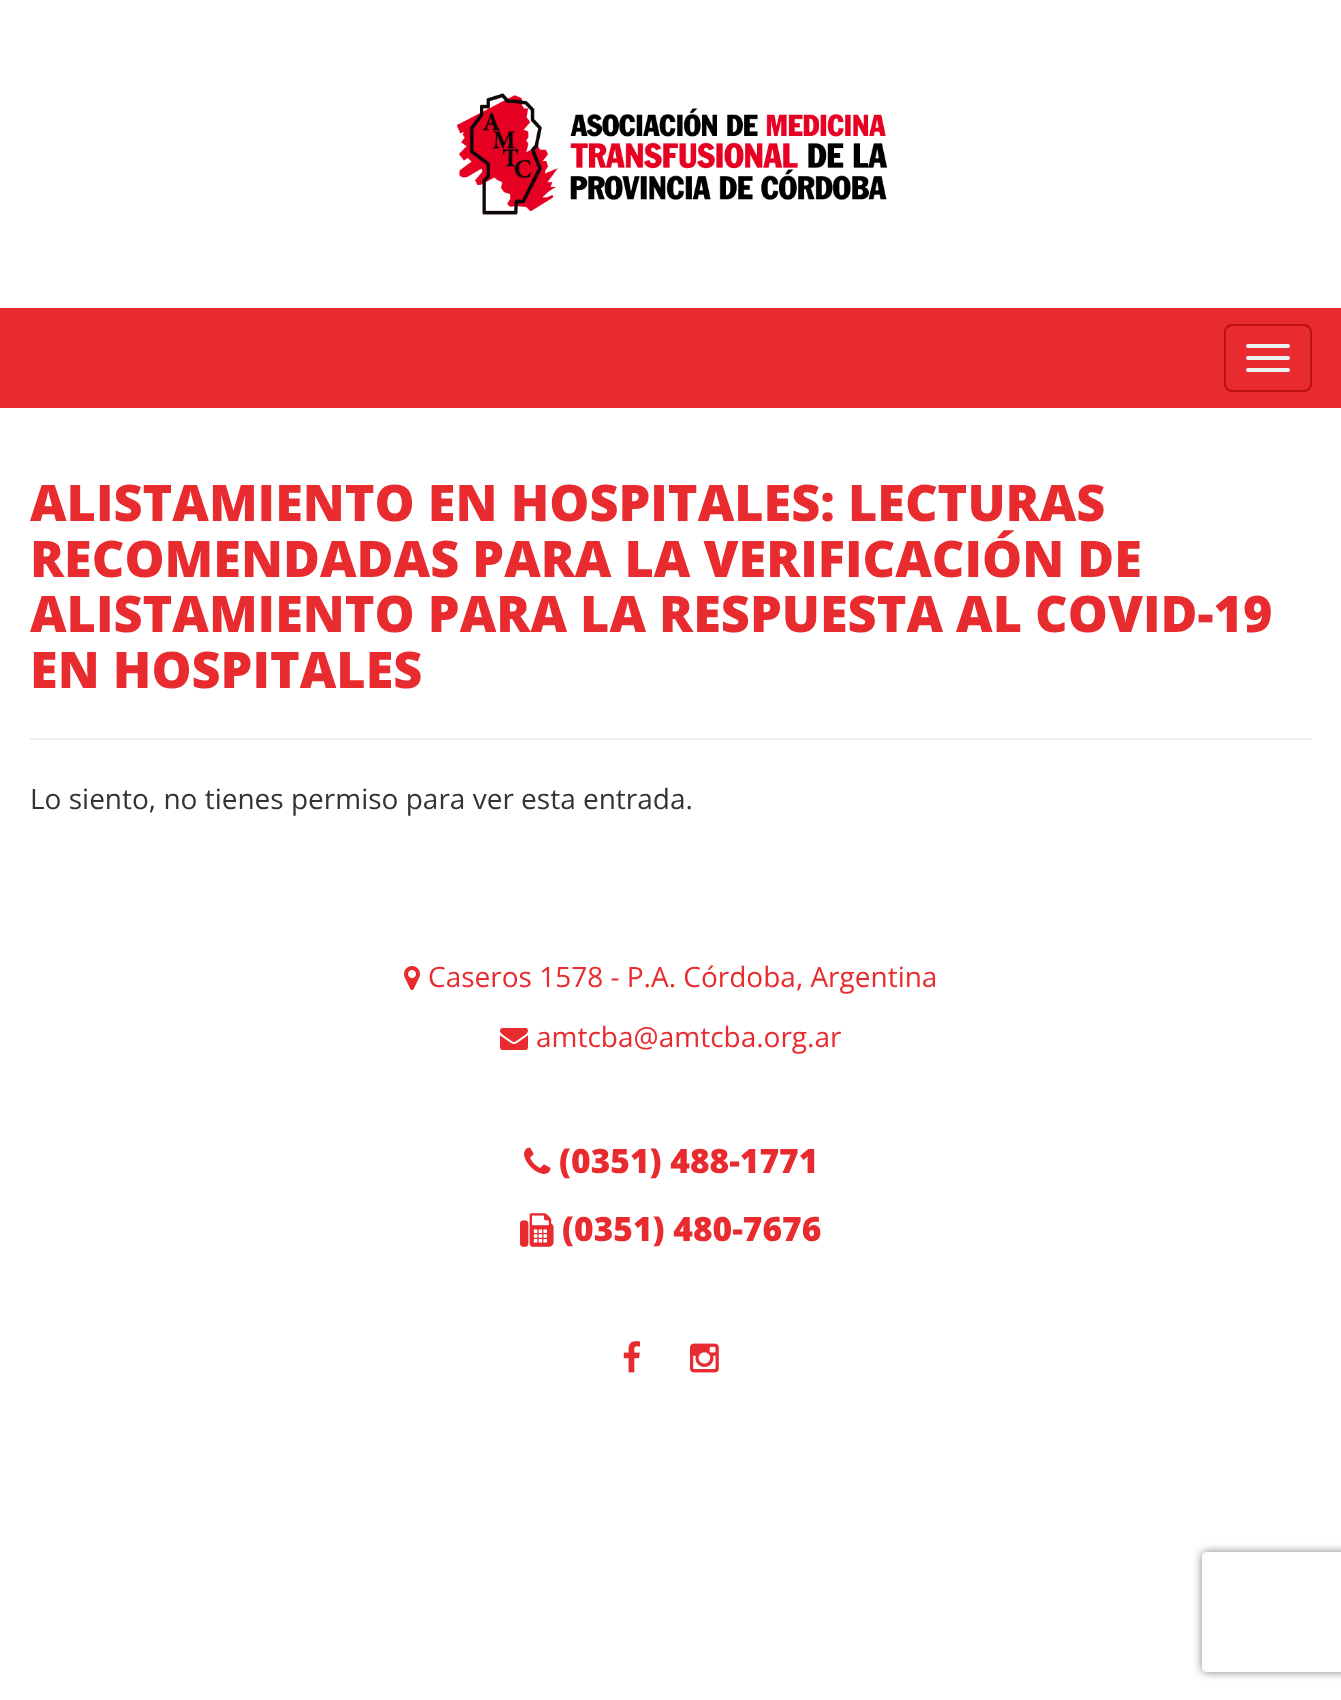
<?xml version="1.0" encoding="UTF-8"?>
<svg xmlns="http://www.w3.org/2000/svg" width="1341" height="1700">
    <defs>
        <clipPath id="clip1"><path d="M 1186 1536 H 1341 V 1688 H 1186 Z M 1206 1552 H 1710 C 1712 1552 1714 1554 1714 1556 V 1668 C 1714 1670 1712 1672 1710 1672 H 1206 C 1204 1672 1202 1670 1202 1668 V 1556 C 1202 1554 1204 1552 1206 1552 Z" clip-rule="evenodd"/></clipPath>
        <filter id="blur1" x="-50%" y="-200%" width="200%" height="500%"><feGaussianBlur stdDeviation="5"/></filter>
    </defs>
    <rect width="100%" height="100%" fill="#FFFFFF"/>
    <image x="456" y="93" width="432" height="122" href="img_01.png"/>
    <rect x="0" y="308" width="1341" height="100" fill="#E72B2F"/>
    <rect x="1225" y="325" width="86" height="66" rx="7" fill="none" stroke="#BD1013" stroke-width="2"/>
    <rect x="1246" y="344" width="44" height="4" rx="2" fill="#ECF0F1"/>
    <rect x="1246" y="356" width="44" height="4" rx="2" fill="#ECF0F1"/>
    <rect x="1246" y="368" width="44" height="4" rx="2" fill="#ECF0F1"/>
    <text font-family="Open Sans" font-size="50.4" font-weight="800" fill="#E72B2F">
        <tspan x="30" y="521">ALISTAMIENTO EN HOSPITALES: LECTURAS</tspan>
        <tspan x="30" y="577">RECOMENDADAS PARA LA VERIFICACIÓN DE</tspan>
        <tspan x="30" y="632">ALISTAMIENTO PARA LA RESPUESTA AL COVID-19</tspan>
        <tspan x="30" y="688">EN HOSPITALES</tspan>
    </text>
    <rect x="30" y="738" width="1282" height="2" fill="#EEEEEE"/>
    <text x="30" y="809" font-family="Open Sans" font-size="28" fill="#333333">Lo siento, no tienes permiso para ver esta entrada.</text>
    <image x="404" y="966" width="16" height="24" href="img_02.png"/>
    <text x="428" y="987" font-family="Open Sans" font-size="28" fill="#E72B2F">Caseros 1578 - P.A. Córdoba, Argentina</text>
    <image x="500" y="1028" width="28" height="22" href="img_03.png"/>
    <text x="536" y="1047" font-family="Open Sans" font-size="28" fill="#E72B2F">amtcba@amtcba.org.ar</text>
    <image x="524" y="1147" width="27" height="27" href="img_04.png"/>
    <text x="559" y="1173" font-family="Open Sans" font-size="33.5" font-weight="800" fill="#E72B2F">(0351) 488-1771</text>
    <image x="520" y="1213" width="34" height="34" href="img_05.png"/>
    <text x="562" y="1241" font-family="Open Sans" font-size="33.5" font-weight="800" fill="#E72B2F">(0351) 480-7676</text>
    <image x="623" y="1341" width="17" height="32" href="img_06.png"/>
    <image x="690" y="1343" width="29" height="30" href="img_07.png"/>
    <g clip-path="url(#clip1)">
        <rect x="1202" y="1552" width="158" height="120" rx="4" fill="#808080" filter="url(#blur1)"/>
    </g>
</svg>
